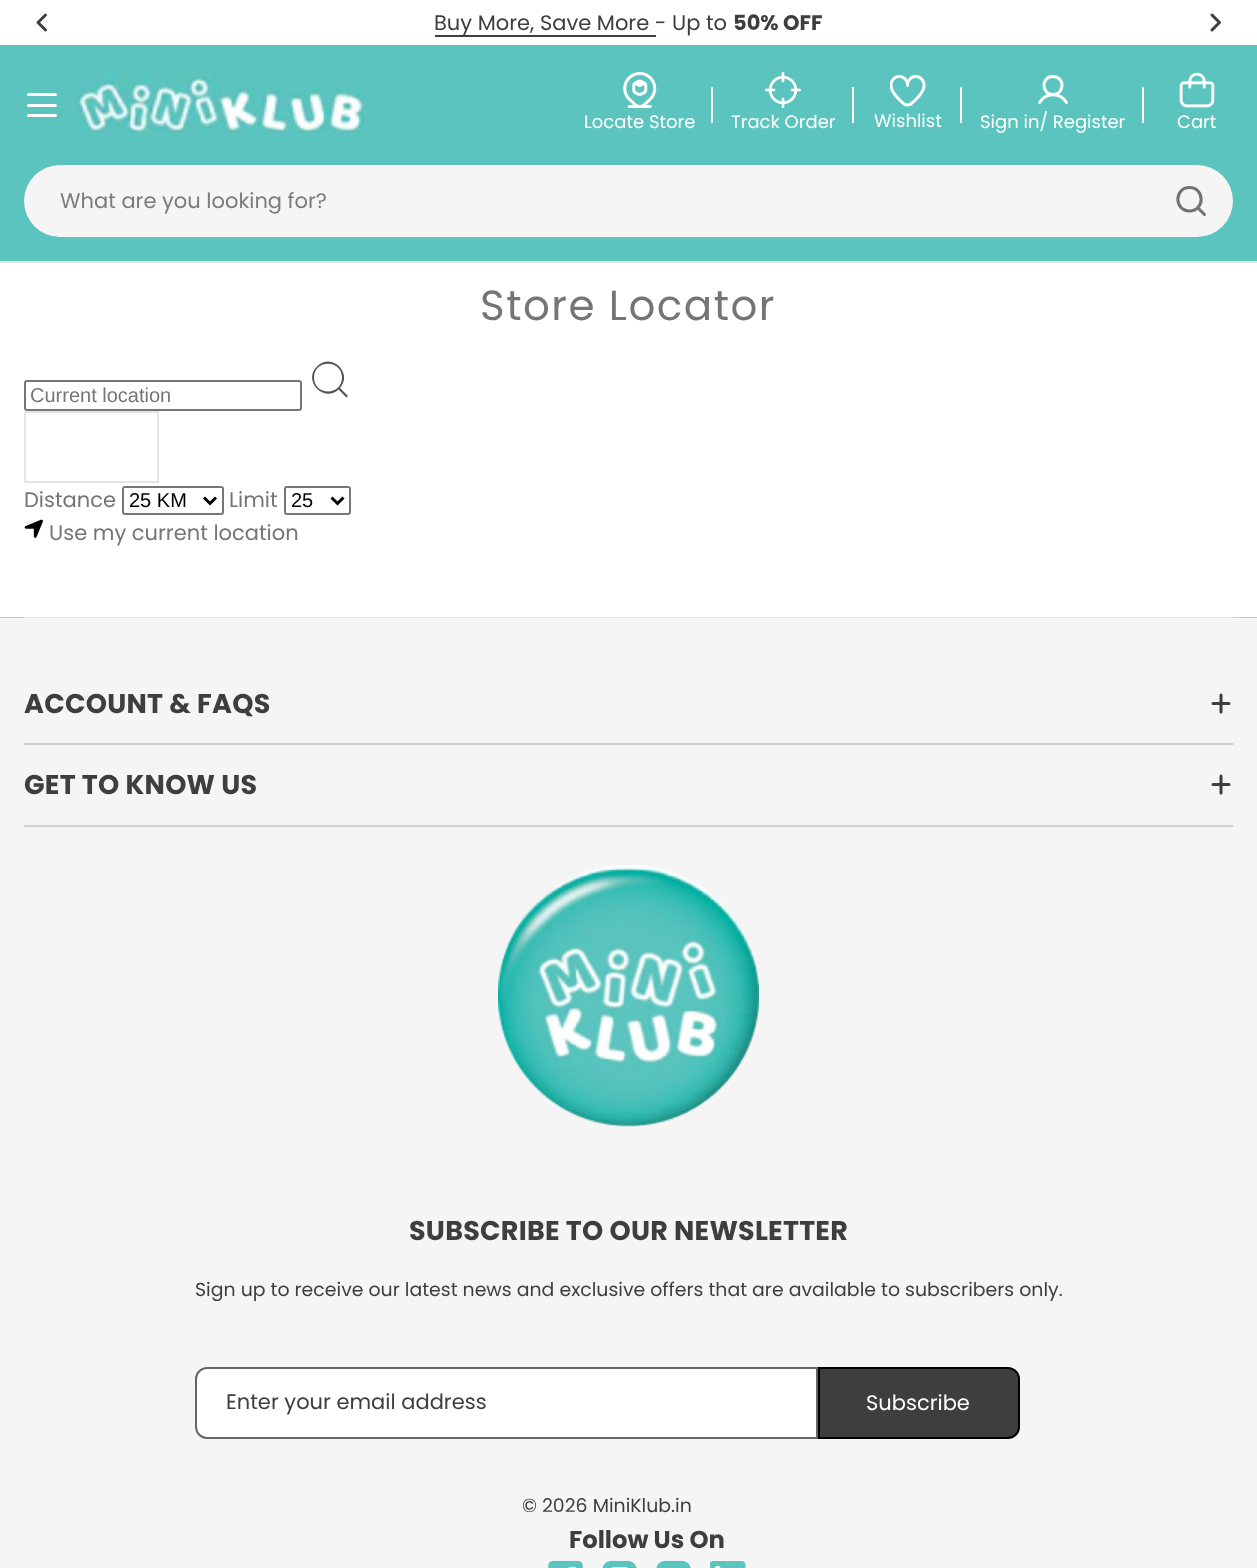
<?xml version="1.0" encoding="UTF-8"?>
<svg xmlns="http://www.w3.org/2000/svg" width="1257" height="1568">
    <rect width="100%" height="100%" fill="#FFFFFF"/>
    <path d="M 45.5 30 L 38 22.5 L 45.5 15" fill="none" stroke="#3E3E3E" stroke-width="3" stroke-linecap="round" stroke-linejoin="round"/>
    <path d="M 1212 15 L 1219.5 22.5 L 1212 30" fill="none" stroke="#3E3E3E" stroke-width="3" stroke-linecap="round" stroke-linejoin="round"/>
    <rect x="435" y="35" width="221" height="2" fill="#3E3E3E"/>
    <text x="434" y="30" font-family="Poppins" font-size="21" fill="#3E3E3E">Buy More, Save More - Up to</text>
    <text x="733" y="30" font-family="Poppins" font-size="21" font-weight="700" fill="#3E3E3E">50% OFF</text>
    <rect x="0" y="45" width="1257" height="216" fill="#5BC4BF"/>
    <rect x="27" y="104" width="30" height="3" rx="1.5" fill="#FFFFFF"/>
    <rect x="27" y="93" width="30" height="3" rx="1.5" fill="#FFFFFF"/>
    <rect x="27" y="114" width="30" height="3" rx="1.5" fill="#FFFFFF"/>
    <image x="78" y="76" width="285" height="57" href="img_01.png"/>
    <image x="623" y="72" width="34" height="36" href="img_02.png"/>
    <rect x="711" y="87" width="2" height="36" fill="#FFFFFF"/>
    <text x="584" y="128" font-family="Poppins" font-size="18" fill="#FFFFFF">Locate Store</text>
    <image x="765" y="72" width="36" height="36" href="img_03.png"/>
    <rect x="852" y="87" width="2" height="36" fill="#FFFFFF"/>
    <text x="731" y="128" font-family="Poppins" font-size="18" fill="#FFFFFF">Track Order</text>
    <image x="890" y="74" width="36" height="33" href="img_04.png"/>
    <rect x="960" y="87" width="2" height="36" fill="#FFFFFF"/>
    <text x="874" y="127" font-family="Poppins" font-size="18" fill="#FFFFFF">Wishlist</text>
    <path d="M 1053 94.5 C 1065 94.5 1065 76.5 1053 76.5 C 1041 76.5 1041 94.5 1053 94.5 Z M 1039.5 102.5 C 1045.5 92 1060.5 92 1066.5 102.5" fill="none" stroke="#FFFFFF" stroke-width="3" stroke-linecap="round" stroke-linejoin="round"/>
    <rect x="1142" y="87" width="2" height="36" fill="#FFFFFF"/>
    <text x="980" y="128" font-family="Poppins" font-size="18" fill="#FFFFFF">Sign in/ Register</text>
    <image x="1179" y="72" width="36" height="36" href="img_05.png"/>
    <text x="1177" y="128" font-family="Poppins" font-size="18" fill="#FFFFFF">Cart</text>
    <rect x="24" y="165" width="1209" height="72" rx="36" fill="#F5F5F5"/>
    <text x="60" y="208" font-family="Poppins" font-size="21" fill="#7B7B7B">What are you looking for?</text>
    <path d="M 1189.5 211 C 1205 211 1205 187.5 1189.5 187.5 C 1174 187.5 1174 211 1189.5 211 Z M 1197.5 207.5 L 1204.5 214.5" fill="none" stroke="#727272" stroke-width="3" stroke-linecap="round" stroke-linejoin="round"/>
    <rect x="0" y="261" width="1257" height="2" fill="#E5E5E5"/>
    <text x="480" y="320" font-family="Poppins" font-size="42" letter-spacing="1.5" fill="#757575">Store Locator</text>
    <rect x="25" y="381" width="276" height="29" rx="2" fill="none" stroke="#767676" stroke-width="2"/>
    <text x="30" y="402" font-family="Liberation Sans" font-size="20" fill="#757575">Current location</text>
    <path d="M 347.5 395.5 L 340 388 C 353.5 373 331 352 317 366.5 C 302.5 380.5 323.5 403 338.5 389.5 L 343.5 394.5 C 344 395 347 399 347.5 396.5 Z M 314 377.5 C 314 359 342 359 342 377.5 C 342 396 314 396 314 377.5 Z" fill="#535353"/>
    <rect x="25" y="412" width="133" height="70" fill="none" stroke="#E5E5E5" stroke-width="2"/>
    <text x="24" y="507" font-family="Poppins" font-size="21" fill="#757575">Distance</text>
    <rect x="123" y="487" width="100" height="27" rx="2" fill="none" stroke="#767676" stroke-width="2"/>
    <path d="M 204 497.5 L 210 503.5 L 216 497.5" fill="none" stroke="#000000" stroke-width="3"/>
    <text x="129" y="507" font-family="Liberation Sans" font-size="20" fill="#000000">25 KM</text>
    <text x="229" y="507" font-family="Poppins" font-size="21" fill="#757575">Limit</text>
    <rect x="285" y="487" width="65" height="27" rx="2" fill="none" stroke="#767676" stroke-width="2"/>
    <path d="M 331.5 497.5 L 337.5 503.5 L 343.5 497.5" fill="none" stroke="#000000" stroke-width="3"/>
    <text x="291" y="507" font-family="Liberation Sans" font-size="20" fill="#000000">25</text>
    <image x="24" y="519" width="19" height="19" href="img_06.png"/>
    <text x="49" y="540" font-family="Poppins" font-size="21" fill="#757575">Use my current location</text>
    <rect x="0" y="617" width="1257" height="1" fill="#C9C9C9"/>
    <rect x="24" y="617" width="1209" height="1" fill="#E5E5E5"/>
    <rect x="0" y="618" width="1257" height="950" fill="#F5F5F5"/>
    <rect x="24" y="743" width="1209" height="2" fill="#D0D0D0"/>
    <text x="24" y="713" font-family="Poppins" font-size="27" font-weight="700" letter-spacing="0.25" fill="#3E3E3E">ACCOUNT &amp; FAQS</text>
    <path d="M 1213 703.5 H 1229 M 1221 695 V 712" fill="none" stroke="#3E3E3E" stroke-width="3" stroke-linecap="round" stroke-linejoin="round"/>
    <rect x="24" y="825" width="1209" height="2" fill="#D0D0D0"/>
    <text x="24" y="794" font-family="Poppins" font-size="27" font-weight="700" letter-spacing="0.25" fill="#3E3E3E">GET TO KNOW US</text>
    <path d="M 1213 784.5 H 1229 M 1221 776 V 793" fill="none" stroke="#3E3E3E" stroke-width="3" stroke-linecap="round" stroke-linejoin="round"/>
    <image x="498" y="865" width="261" height="262" href="img_07.png"/>
    <text x="409" y="1240" font-family="Poppins" font-size="27" font-weight="700" letter-spacing="0.25" fill="#3E3E3E">SUBSCRIBE TO OUR NEWSLETTER</text>
    <text x="195" y="1296" font-family="Poppins" font-size="18.9" fill="#3E3E3E">Sign up to receive our latest news and exclusive offers that are available to subscribers only.</text>
    <path d="M 207 1368 H 817 V 1438 H 207 C 201 1438 196 1433 196 1427 V 1379 C 196 1373 201 1368 207 1368 Z" fill="#FFFFFF" stroke="#666666" stroke-width="2"/>
    <text x="226" y="1409" font-family="Poppins" font-size="21" fill="#3E3E3E">Enter your email address</text>
    <path d="M 819 1368 H 1008 C 1014 1368 1019 1373 1019 1379 V 1427 C 1019 1433 1014 1438 1008 1438 H 819 Z" fill="#3E3E3E" stroke="#000000" stroke-width="2"/>
    <text x="866" y="1410" font-family="Poppins" font-size="21" fill="#FFFFFF">Subscribe</text>
    <text x="522" y="1512" font-family="Poppins" font-size="18.9" fill="#3E3E3E">© 2026 MiniKlub.in</text>
    <text x="569" y="1548" font-family="Poppins" font-size="24.25" font-weight="700" fill="#3E3E3E">Follow Us On</text>
    <image x="548" y="1560" width="35" height="8" href="img_08.png"/>
    <image x="602" y="1560" width="35" height="8" href="img_09.png"/>
    <image x="656" y="1560" width="35" height="8" href="img_10.png"/>
    <image x="710" y="1561" width="36" height="7" href="img_11.png"/>
</svg>
